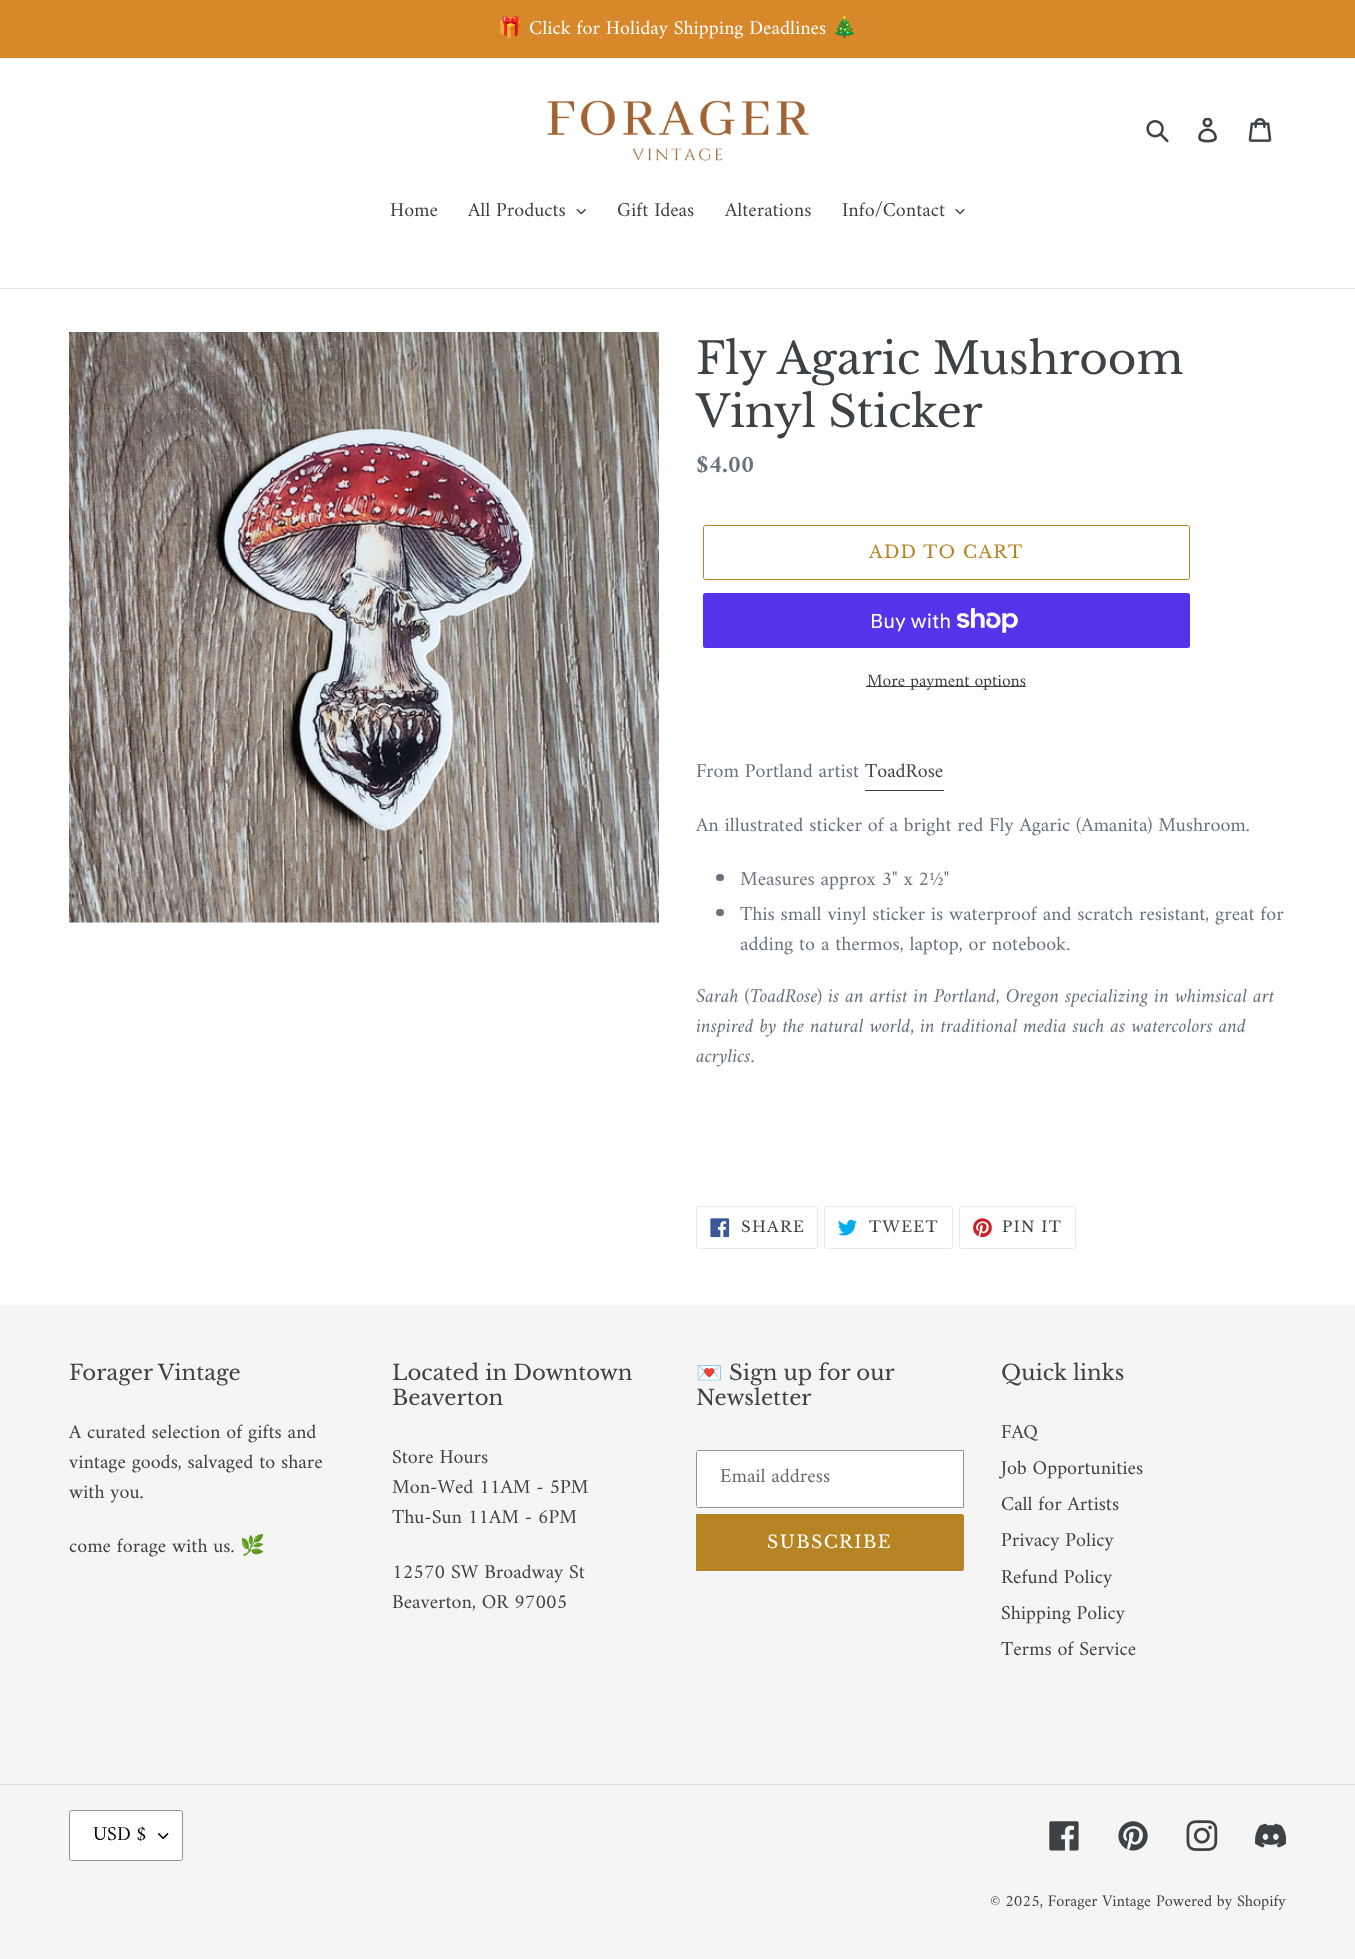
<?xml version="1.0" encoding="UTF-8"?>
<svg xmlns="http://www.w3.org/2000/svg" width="1355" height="1959">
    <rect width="100%" height="100%" fill="#FFFFFF"/>
    <rect x="0" y="0" width="1355" height="58" fill="#D7882A"/>
    <text x="498" y="34" font-family="Noto Color Emoji" font-size="20" fill="#FFFFFF">🎁</text>
    <text x="529" y="34" font-family="Amiri" font-size="20" fill="#FFFFFF">Click for Holiday Shipping Deadlines</text>
    <text x="832" y="34" font-family="Noto Color Emoji" font-size="20" fill="#FFFFFF">🎄</text>
    <image x="547" y="100" width="262" height="61" href="img_01.png"/>
    <image x="1146" y="120" width="23" height="23" href="img_02.png"/>
    <image x="1198" y="118" width="19" height="25" href="img_03.png"/>
    <image x="1248" y="118" width="24" height="24" href="img_04.png"/>
    <rect x="0" y="288" width="1355" height="1" fill="#E8E9EB"/>
    <text x="390" y="216" font-family="Amiri" font-size="20" fill="#3D4246">Home</text>
    <text x="468" y="216" font-family="Amiri" font-size="20" fill="#3D4246">All Products</text>
    <image x="576" y="208" width="10" height="7" href="img_05.png"/>
    <text x="617" y="216" font-family="Amiri" font-size="20" fill="#3D4246">Gift Ideas</text>
    <text x="725" y="216" font-family="Amiri" font-size="20" fill="#3D4246">Alterations</text>
    <text x="842" y="216" font-family="Amiri" font-size="20" fill="#3D4246">Info/Contact</text>
    <image x="955" y="209" width="10" height="6" href="img_06.png"/>
    <image x="69" y="332" width="590" height="591" href="img_07.png"/>
    <text font-family="Libre Baskerville" font-size="43.75" fill="#3D4246">
        <tspan x="696" y="374">Fly Agaric Mushroom</tspan>
        <tspan x="696" y="427">Vinyl Sticker</tspan>
    </text>
    <text x="696" y="472" font-family="Amiri" font-size="25" font-weight="700" fill="#69727B">$4.00</text>
    <rect x="703.5" y="525.5" width="486" height="54" rx="2" fill="none" stroke="#B68422"/>
    <text x="869" y="558" font-family="Libre Baskerville" font-size="17.5" letter-spacing="1.4" fill="#B68422">ADD TO CART</text>
    <rect x="703" y="593" width="487" height="55" rx="2.5" fill="#5433EB"/>
    <text x="870" y="628" font-family="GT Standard" font-size="20" fill="#FFFFFF">Buy with</text>
    <image x="956" y="608" width="62" height="25" href="img_08.png"/>
    <rect x="866" y="686" width="160" height="1" fill="#3D4246"/>
    <text x="867" y="686" font-family="Amiri" font-size="17.5" fill="#3D4246">More payment options</text>
    <text x="696" y="777" font-family="Amiri" font-size="20" fill="#69727B">From Portland artist</text>
    <text x="865" y="777" font-family="Amiri" font-size="20" fill="#3D4246">ToadRose</text>
    <rect x="865" y="790" width="79" height="1" fill="#3D4246"/>
    <text x="696" y="831" font-family="Amiri" font-size="20" fill="#69727B">An illustrated sticker of a bright red Fly Agaric (Amanita) Mushroom.</text>
    <rect x="716" y="874" width="8" height="7" rx="3.5" fill="#69727B"/>
    <text x="740" y="885" font-family="Amiri" font-size="20" fill="#69727B">Measures approx 3" x 2½"</text>
    <rect x="716" y="909" width="8" height="7" rx="3.5" fill="#69727B"/>
    <text font-family="Amiri" font-size="20" fill="#69727B">
        <tspan x="740" y="920">This small vinyl sticker is waterproof and scratch resistant, great for</tspan>
        <tspan x="740" y="950">adding to a thermos, laptop, or notebook.</tspan>
    </text>
    <text font-family="Amiri" font-size="20" font-style="italic" fill="#69727B">
        <tspan x="696" y="1002">Sarah (ToadRose) is an artist in Portland, Oregon specializing in whimsical art</tspan>
        <tspan x="696" y="1032">inspired by the natural world, in traditional media such as watercolors and</tspan>
        <tspan x="696" y="1062">acrylics.</tspan>
    </text>
    <rect x="696.5" y="1206.5" width="121" height="42" rx="2" fill="none" stroke="#E8E9EB"/>
    <image x="710" y="1218" width="20" height="20" href="img_09.png"/>
    <text x="741" y="1232" font-family="Libre Baskerville" font-size="15" letter-spacing="1.25" fill="#3D4246">SHARE</text>
    <rect x="824.5" y="1206.5" width="128" height="42" rx="2" fill="none" stroke="#E8E9EB"/>
    <image x="838" y="1219" width="19" height="17" href="img_10.png"/>
    <text x="869" y="1232" font-family="Libre Baskerville" font-size="15" letter-spacing="1.25" fill="#3D4246">TWEET</text>
    <rect x="959.5" y="1206.5" width="116" height="42" rx="2" fill="none" stroke="#E8E9EB"/>
    <image x="973" y="1218" width="19" height="20" href="img_11.png"/>
    <text x="1002" y="1232" font-family="Libre Baskerville" font-size="15" letter-spacing="1.25" fill="#3D4246">PIN IT</text>
    <rect x="0" y="1305" width="1355" height="654" fill="#F5F5F5"/>
    <text x="69" y="1380" font-family="Libre Baskerville" font-size="21.25" fill="#3D4246">Forager Vintage</text>
    <text font-family="Amiri" font-size="20" fill="#3D4246">
        <tspan x="69" y="1438">A curated selection of gifts and</tspan>
        <tspan x="69" y="1468">vintage goods, salvaged to share</tspan>
        <tspan x="69" y="1498">with you.</tspan>
    </text>
    <text x="69" y="1552" font-family="Amiri" font-size="20" fill="#3D4246">come forage with us.</text>
    <text x="240" y="1552" font-family="Noto Color Emoji" font-size="20" fill="#3D4246">🌿</text>
    <text font-family="Libre Baskerville" font-size="21.25" fill="#3D4246">
        <tspan x="392" y="1380">Located in Downtown</tspan>
        <tspan x="392" y="1405">Beaverton</tspan>
    </text>
    <text font-family="Amiri" font-size="20" fill="#3D4246">
        <tspan x="392" y="1463">Store Hours</tspan>
        <tspan x="392" y="1493">Mon-Wed 11AM - 5PM</tspan>
        <tspan x="392" y="1523">Thu-Sun 11AM - 6PM</tspan>
    </text>
    <text font-family="Amiri" font-size="20" fill="#3D4246">
        <tspan x="392" y="1578">12570 SW Broadway St</tspan>
        <tspan x="392" y="1608">Beaverton, OR 97005</tspan>
    </text>
    <text x="696" y="1380" font-family="Noto Color Emoji" font-size="21.25" fill="#3D4246">💌</text>
    <text x="729" y="1380" font-family="Libre Baskerville" font-size="21.25" fill="#3D4246">Sign up for our</text>
    <text x="696" y="1405" font-family="Libre Baskerville" font-size="21.25" fill="#3D4246">Newsletter</text>
    <path d="M 698.5 1450.5 H 963.5 V 1507.5 H 698.5 C 697.5 1507.5 696.5 1506.5 696.5 1505.5 V 1452.5 C 696.5 1451.5 697.5 1450.5 698.5 1450.5 Z" fill="#FFFFFF" stroke="#949494"/>
    <text x="720" y="1482" font-family="Amiri" font-size="20" fill="#666666">Email address</text>
    <path d="M 696 1514 H 961.5 C 963 1514 964 1515 964 1516.5 V 1568.5 C 964 1570 963 1571 961.5 1571 H 696 Z" fill="#B68422"/>
    <text x="767" y="1548" font-family="Libre Baskerville" font-size="17.5" letter-spacing="1.4" fill="#FFFFFF">SUBSCRIBE</text>
    <text x="1001" y="1380" font-family="Libre Baskerville" font-size="21.25" fill="#3D4246">Quick links</text>
    <text font-family="Amiri" font-size="20" fill="#3D4246">
        <tspan x="1001" y="1438">FAQ</tspan>
        <tspan x="1001" y="1474">Job Opportunities</tspan>
        <tspan x="1001" y="1510">Call for Artists</tspan>
        <tspan x="1001" y="1546">Privacy Policy</tspan>
        <tspan x="1001" y="1583">Refund Policy</tspan>
        <tspan x="1001" y="1619">Shipping Policy</tspan>
        <tspan x="1001" y="1655">Terms of Service</tspan>
    </text>
    <rect x="0" y="1784" width="1355" height="1" fill="#DCDCDC"/>
    <rect x="69" y="1810" width="114" height="51" rx="2.5" fill="#FFFFFF"/>
    <image x="158" y="1833" width="11" height="6" href="img_12.png"/>
    <rect x="69.5" y="1810.5" width="113" height="50" rx="2" fill="none" stroke="#949494"/>
    <text x="93" y="1840" font-family="Amiri" font-size="20" fill="#000000">USD $</text>
    <image x="1049" y="1821" width="30" height="30" href="img_13.png"/>
    <image x="1118" y="1821" width="30" height="30" href="img_14.png"/>
    <image x="1186" y="1820" width="32" height="31" href="img_15.png"/>
    <image x="1255" y="1823" width="31" height="25" href="img_16.png"/>
    <text x="990" y="1906" font-family="Amiri" font-size="16.25" fill="#3D4246">© 2025, Forager Vintage</text>
    <text x="1156" y="1906" font-family="Amiri" font-size="16.25" fill="#3D4246">Powered by Shopify</text>
</svg>
